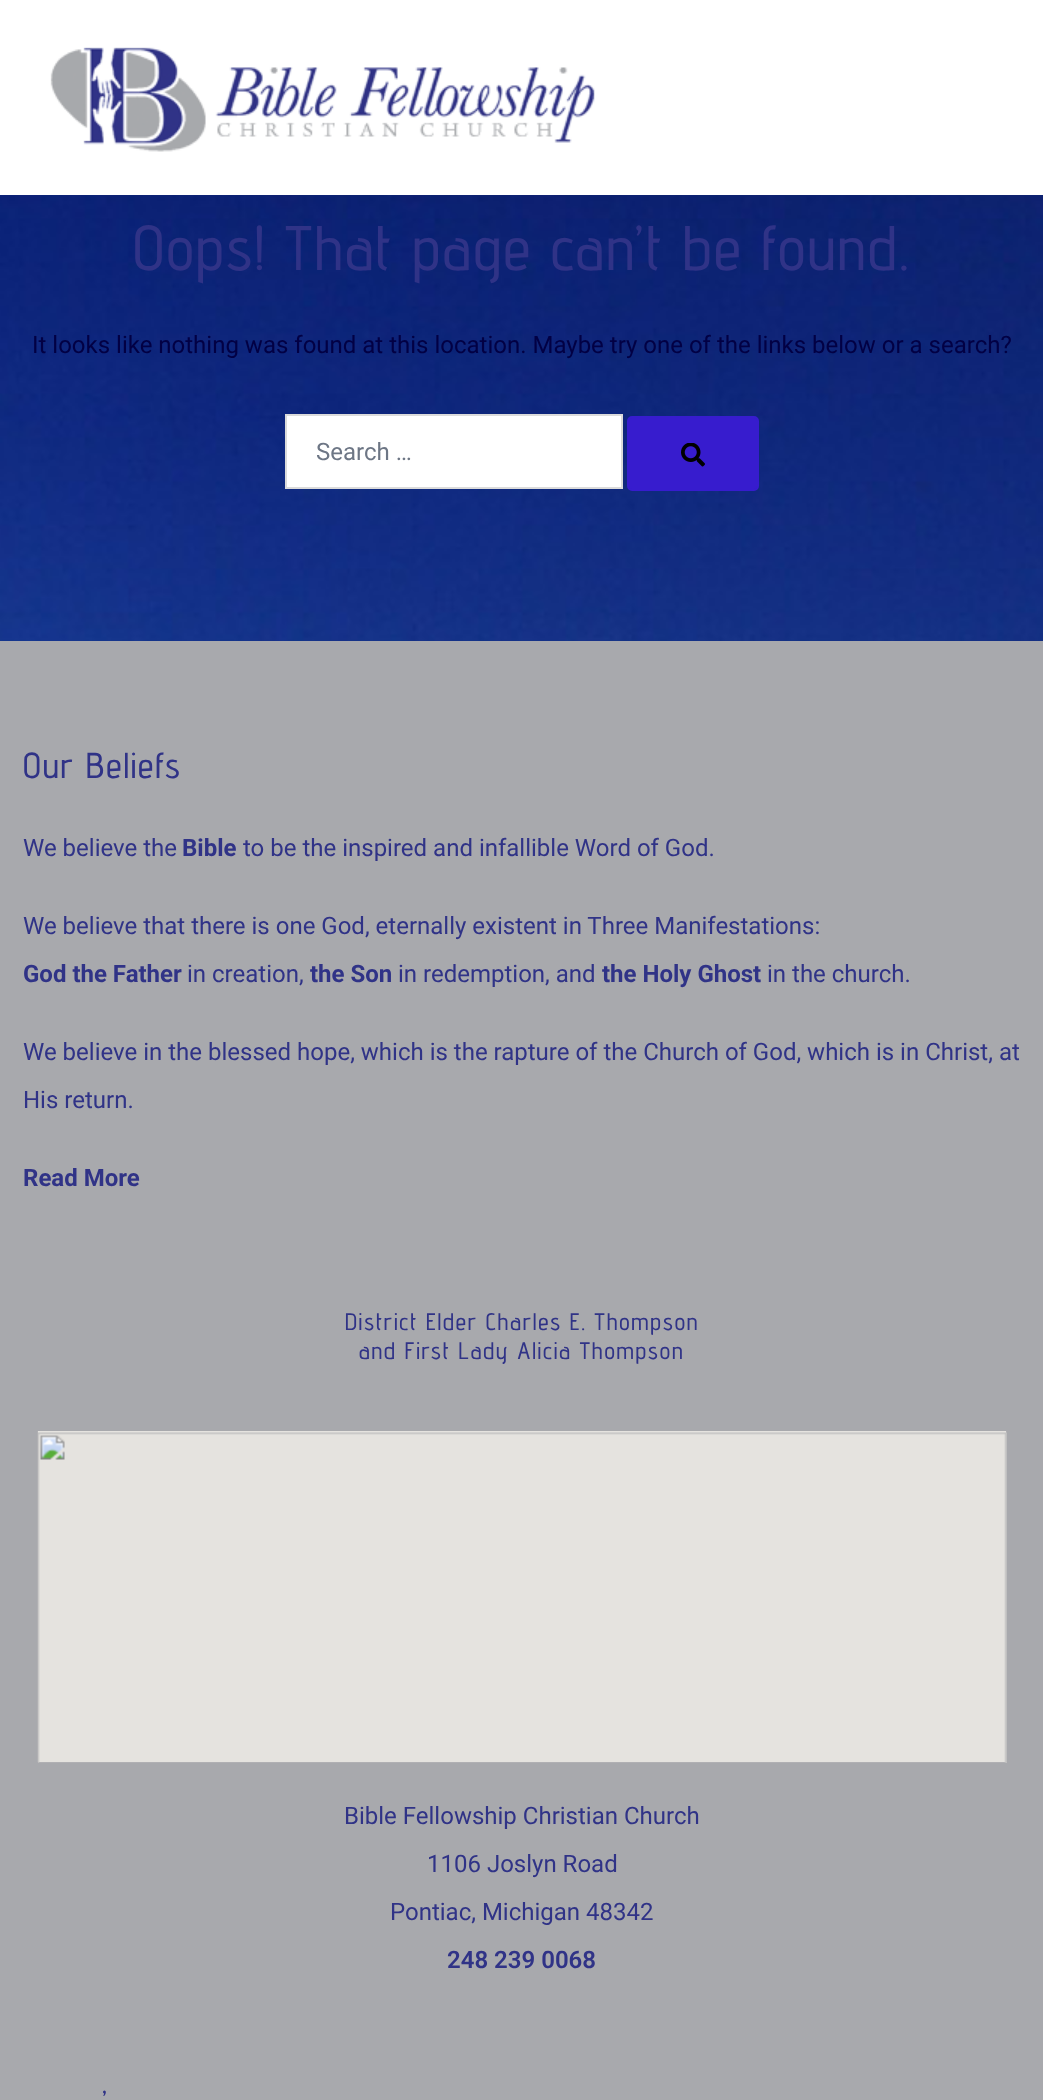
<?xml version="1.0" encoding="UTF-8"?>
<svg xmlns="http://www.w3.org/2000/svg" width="1043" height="2100">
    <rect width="100%" height="100%" fill="#FFFFFF"/>
    <image x="0" y="195" width="1043" height="446" href="img_01.png"/>
    <image x="50" y="47" width="545" height="105" href="img_02.png"/>
    <text x="133" y="270" font-family="Advent Pro" font-size="63" font-weight="500" letter-spacing="1.5" fill="#303387">Oops! That page can’t be found.</text>
    <text x="32" y="353" font-family="Roboto" font-size="24" fill="#020044">It looks like nothing was found at this location. Maybe try one of the links below or a search?</text>
    <rect x="286" y="415" width="336" height="73" fill="#FFFFFF" stroke="#DBDBDB" stroke-width="2"/>
    <text x="316" y="460" font-family="Roboto" font-size="24" fill="#6D7685">Search …</text>
    <rect x="628" y="417" width="130" height="73" rx="4" fill="#371CCE" stroke="#371CCE" stroke-width="2"/>
    <image x="681" y="443" width="24" height="24" href="img_03.png"/>
    <rect x="0" y="641" width="1043" height="1459" fill="#A8A9AD"/>
    <text x="23" y="778" font-family="Advent Pro" font-size="36" font-weight="500" letter-spacing="1.5" fill="#303387">Our Beliefs</text>
    <text x="23" y="856" font-family="Roboto" font-size="24" fill="#303387">We believe the</text>
    <text x="182" y="856" font-family="Roboto" font-size="24" font-weight="700" fill="#303387">Bible</text>
    <text x="243" y="856" font-family="Roboto" font-size="24" fill="#303387">to be the inspired and infallible Word of God.</text>
    <text x="23" y="934" font-family="Roboto" font-size="24" fill="#303387">We believe that there is one God, eternally existent in Three Manifestations:</text>
    <text x="23" y="982" font-family="Roboto" font-size="24" font-weight="700" fill="#303387">God the Father</text>
    <text x="187" y="982" font-family="Roboto" font-size="24" fill="#303387">in creation,</text>
    <text x="310" y="982" font-family="Roboto" font-size="24" font-weight="700" fill="#303387">the Son</text>
    <text x="398" y="982" font-family="Roboto" font-size="24" fill="#303387">in redemption, and</text>
    <text x="602" y="982" font-family="Roboto" font-size="24" font-weight="700" fill="#303387">the Holy Ghost</text>
    <text x="767" y="982" font-family="Roboto" font-size="24" fill="#303387">in the church.</text>
    <text x="23" y="1060" font-family="Roboto" font-size="24" fill="#303387">We believe in the blessed hope, which is the rapture of the Church of God, which is in Christ, at</text>
    <text x="23" y="1108" font-family="Roboto" font-size="24" fill="#303387">His return.</text>
    <text x="23" y="1186" font-family="Roboto" font-size="24" font-weight="700" fill="#303387">Read More</text>
    <text x="345" y="1330" font-family="Advent Pro" font-size="24" font-weight="500" letter-spacing="1.5" fill="#303387">District Elder Charles E. Thompson</text>
    <text x="359" y="1359" font-family="Advent Pro" font-size="24" font-weight="500" letter-spacing="1.5" fill="#303387">and First Lady Alicia Thompson</text>
    <image x="37" y="1431" width="970" height="332" href="img_04.png"/>
    <text x="344" y="1824" font-family="Roboto" font-size="24" fill="#303387">Bible Fellowship Christian Church</text>
    <text x="427" y="1872" font-family="Roboto" font-size="24" fill="#303387">1106 Joslyn Road</text>
    <text x="390" y="1920" font-family="Roboto" font-size="24" fill="#303387">Pontiac, Michigan 48342</text>
    <text x="447" y="1968" font-family="Roboto" font-size="24" font-weight="600" fill="#303387">248 239 0068</text>
    <text x="102" y="2114" font-family="Advent Pro" font-size="33" font-weight="500" letter-spacing="1.5" fill="#303387">’</text>
</svg>
